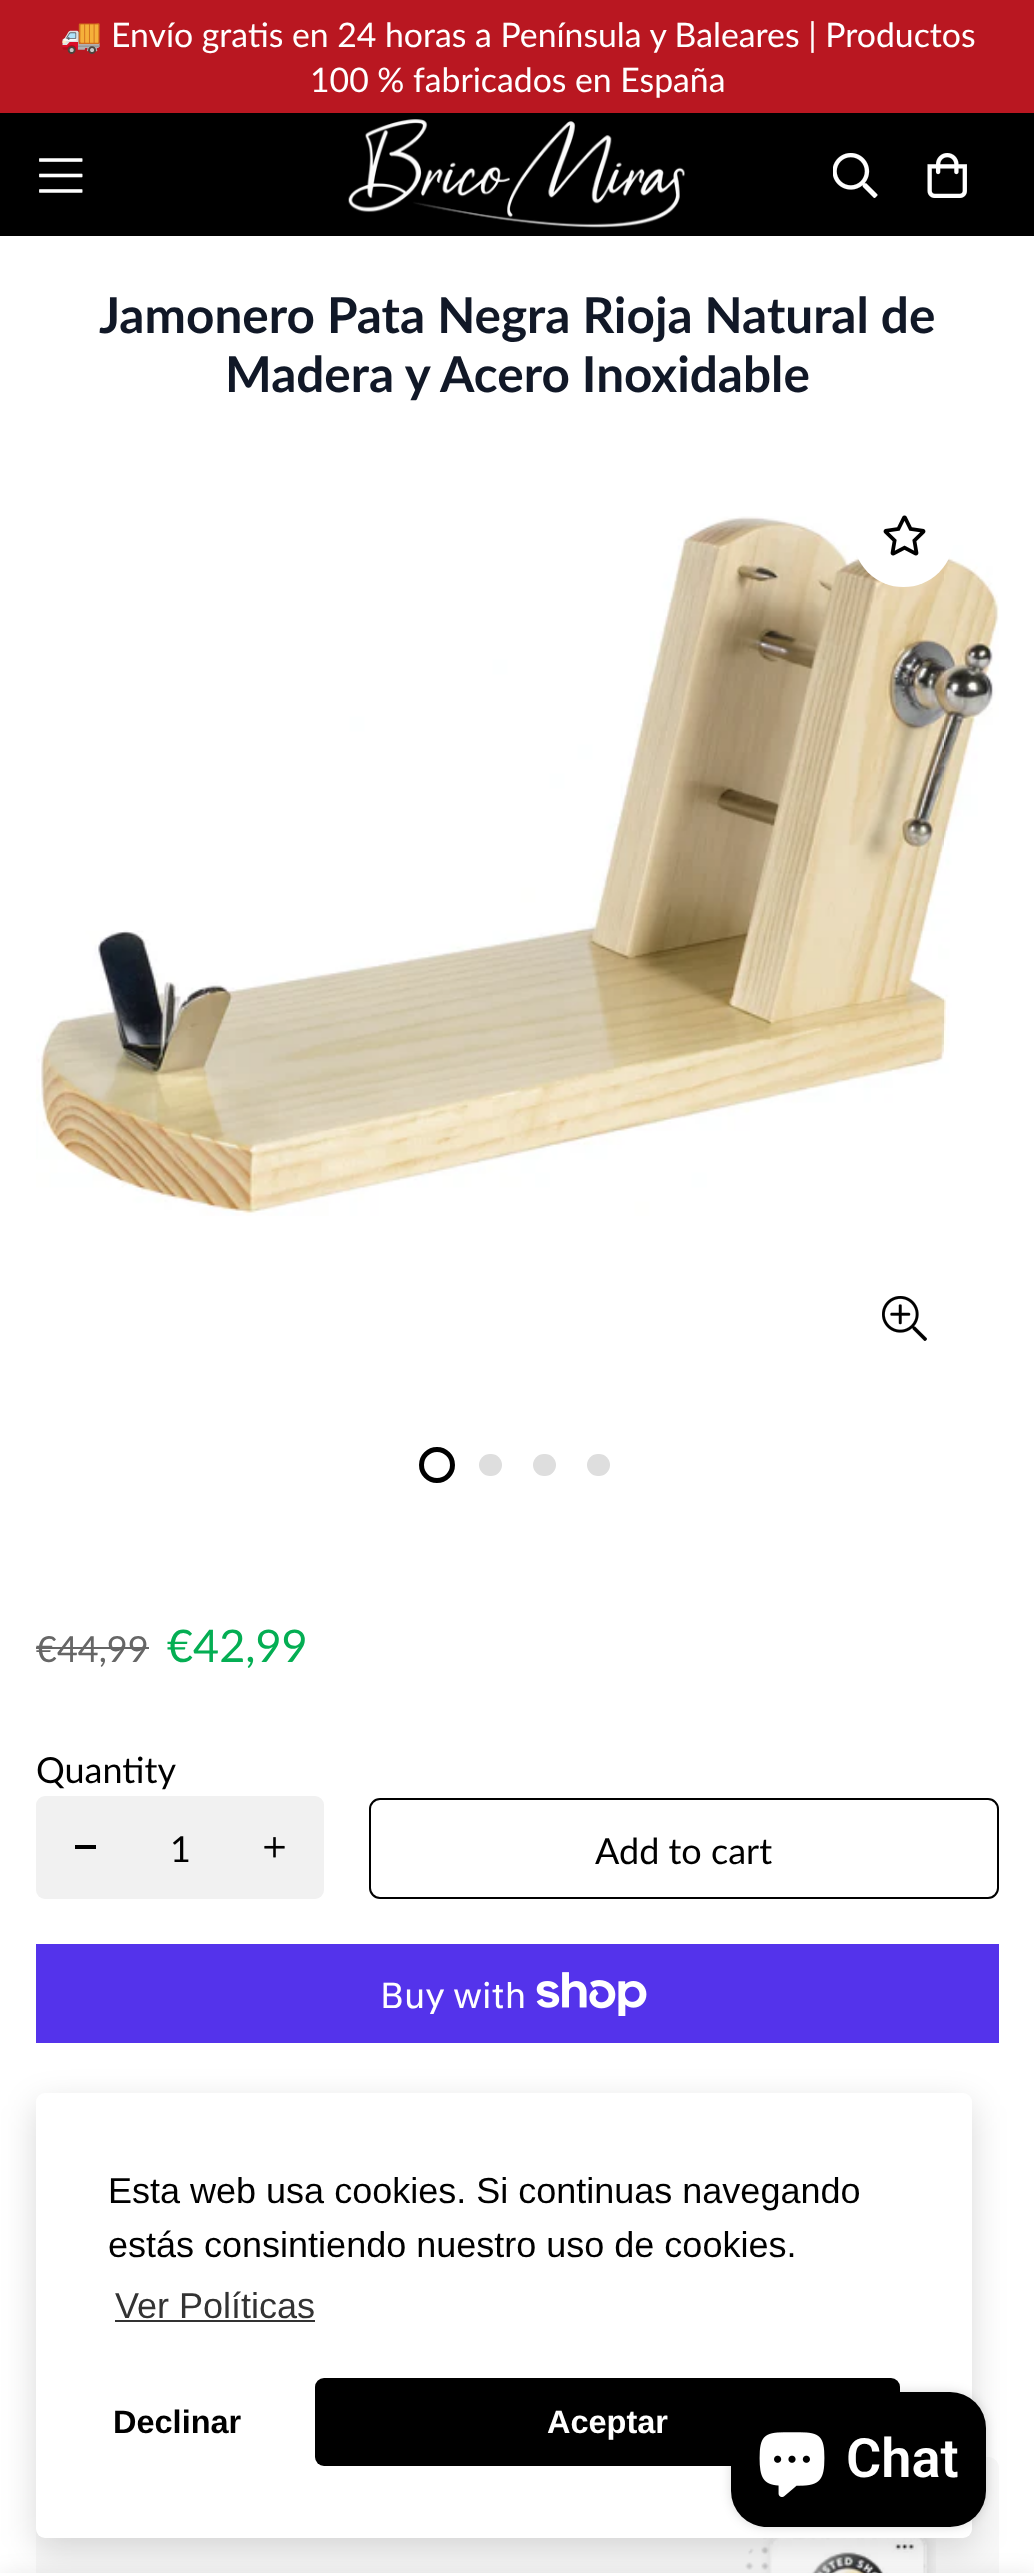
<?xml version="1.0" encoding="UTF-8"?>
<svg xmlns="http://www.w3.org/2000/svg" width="1034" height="2573">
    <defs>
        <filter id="blur1" x="-50%" y="-200%" width="200%" height="500%"><feGaussianBlur stdDeviation="11"/></filter>
        <filter id="blur2" x="-50%" y="-200%" width="200%" height="500%"><feGaussianBlur stdDeviation="17"/></filter>
        <filter id="blur3" x="-50%" y="-200%" width="200%" height="500%"><feGaussianBlur stdDeviation="5.5"/></filter>
    </defs>
    <rect width="100%" height="100%" fill="#FFFFFF"/>
    <rect x="0" y="0" width="1034" height="113" fill="#B91721"/>
    <text x="60" y="47" font-family="Noto Color Emoji" font-size="33.75" fill="#FFFFFF">🚚</text>
    <text x="111" y="47" font-family="Lato" font-size="33.75" fill="#FFFFFF">Envío gratis en 24 horas a Península y Baleares | Productos</text>
    <text x="310" y="92" font-family="Lato" font-size="33.75" fill="#FFFFFF">100 % fabricados en España</text>
    <rect x="0" y="113" width="1034" height="123" fill="#000000"/>
    <image x="39" y="158" width="44" height="35" href="img_01.png"/>
    <image x="348" y="119" width="337" height="109" href="img_02.png"/>
    <image x="833" y="153" width="45" height="45" href="img_03.png"/>
    <image x="927" y="153" width="40" height="45" href="img_04.png"/>
    <text x="99" y="333" font-family="Lato" font-size="49.5" font-weight="700" fill="#111827">Jamonero Pata Negra Rioja Natural de</text>
    <text x="225" y="392" font-family="Lato" font-size="49.5" font-weight="700" fill="#111827">Madera y Acero Inoxidable</text>
    <image x="36" y="516" width="963" height="700" href="img_06.png"/>
    <circle cx="903.5" cy="536.5" r="50.5" fill="#FFFFFF"/>
    <image x="883" y="515" width="43" height="41" href="img_05.png"/>
    <image x="882" y="1296" width="45" height="45" href="img_07.png"/>
    <circle cx="437" cy="1465" r="15.5" fill="none" stroke="#000000" stroke-width="5"/>
    <rect x="479" y="1454" width="23" height="22" rx="11" fill="#DEDEDE"/>
    <rect x="533" y="1454" width="23" height="22" rx="11" fill="#DEDEDE"/>
    <rect x="587" y="1454" width="23" height="22" rx="11" fill="#DEDEDE"/>
    <text x="36" y="1662" font-family="Lato" font-size="36" fill="#666666">€44,99</text>
    <rect x="36" y="1647" width="113" height="2" fill="#666666"/>
    <text x="167" y="1662" font-family="Lato" font-size="45" fill="#04AE53">€42,99</text>
    <text x="36" y="1783" font-family="Lato" font-size="36" fill="#000000">Quantity</text>
    <rect x="36" y="1796" width="288" height="103" rx="9" fill="#F1F1F1"/>
    <rect x="75" y="1845" width="21" height="4" fill="#000000"/>
    <text x="170" y="1862" font-family="Lato" font-size="36" fill="#000000">1</text>
    <image x="264" y="1837" width="21" height="21" href="img_08.png"/>
    <rect x="370" y="1799" width="628" height="99" rx="10" fill="none" stroke="#000000" stroke-width="2"/>
    <text x="595" y="1864" font-family="Lato" font-size="36" fill="#000000">Add to cart</text>
    <rect x="36" y="1944" width="963" height="99" fill="#5433EB"/>
    <text x="380" y="2008" font-family="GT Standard" font-size="36" fill="#FFFFFF">Buy with</text>
    <image x="536" y="1972" width="111" height="44" href="img_09.png"/>
    <rect x="36" y="2457" width="963" height="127" rx="11" fill="#F8F8F8"/>
    <image x="745" y="2538" width="191" height="35" href="img_10.png"/>
    <rect x="0" y="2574" width="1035" height="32" fill="#000000" fill-opacity="0.09" filter="url(#blur1)"/>
    <rect x="36" y="2104" width="936" height="445" rx="9" fill="#000000" fill-opacity="0.15" filter="url(#blur2)"/>
    <rect x="36" y="2093" width="936" height="445" rx="9" fill="#FFFFFF"/>
    <text font-family="Liberation Sans" font-size="36" fill="#000000">
        <tspan x="108" y="2203">Esta web usa cookies. Si continuas navegando</tspan>
        <tspan x="108" y="2257">estás consintiendo nuestro uso de cookies.</tspan>
    </text>
    <text x="115" y="2318" font-family="Liberation Sans" font-size="36" fill="#333333">Ver Políticas</text>
    <rect x="115" y="2320" width="200" height="2" fill="#333333"/>
    <text x="113" y="2433" font-family="Liberation Sans" font-size="32.5" font-weight="700" fill="#000000">Declinar</text>
    <rect x="315" y="2378" width="585" height="88" rx="9" fill="#000000"/>
    <text x="547" y="2433" font-family="Liberation Sans" font-size="32.5" font-weight="700" fill="#FFFFFF">Aceptar</text>
    <rect x="731" y="2392" width="255" height="135" rx="36" fill="#000000" fill-opacity="0.15" filter="url(#blur3)"/>
    <rect x="731" y="2392" width="255" height="135" rx="36" fill="#000000"/>
    <image x="759" y="2432" width="66" height="65" href="img_11.png"/>
    <text x="846" y="2477" font-family="Roboto" font-size="54" font-weight="600" fill="#FFFFFF">Chat</text>
</svg>
